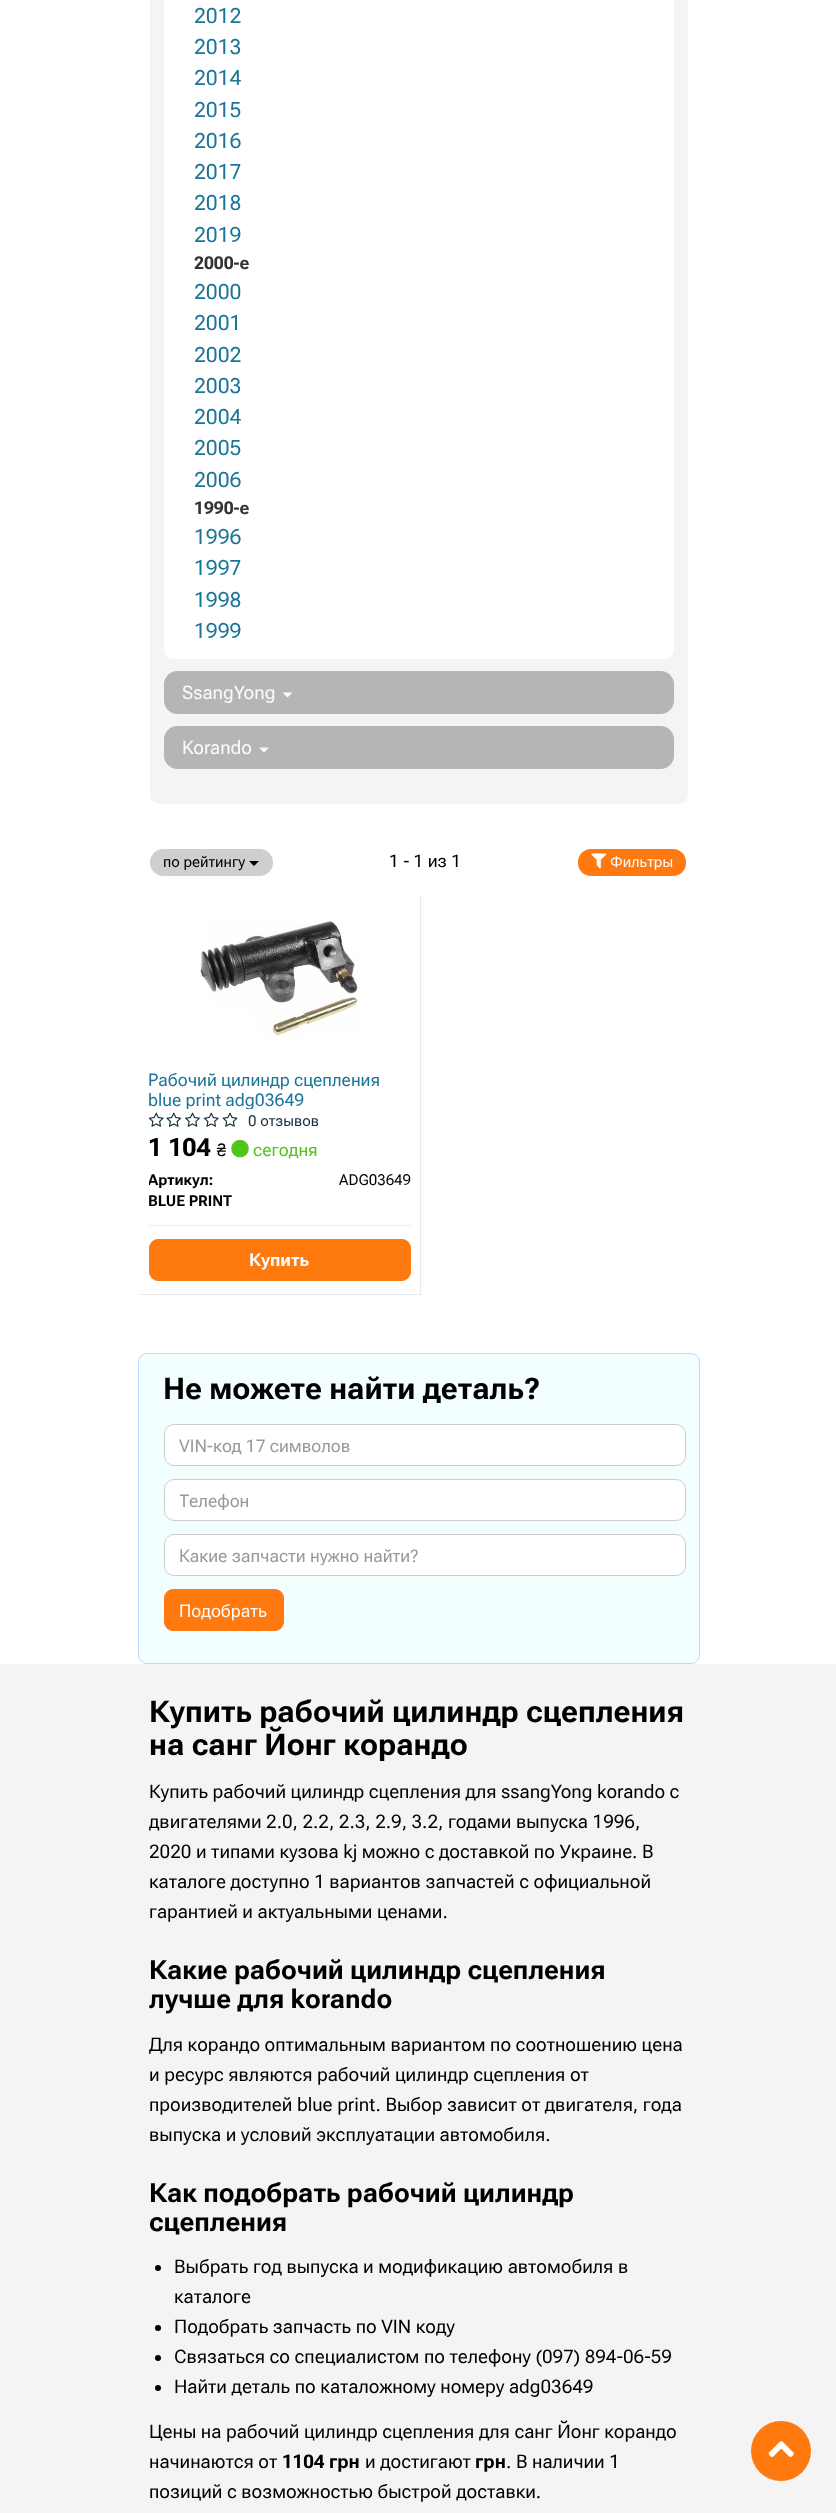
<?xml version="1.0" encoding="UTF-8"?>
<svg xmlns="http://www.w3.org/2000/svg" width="836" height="2513">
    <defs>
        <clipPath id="clip1"><rect x="149" y="1070" width="262" height="39"/></clipPath>
        <clipPath id="clip2"><rect x="149" y="895" width="262" height="386" rx="9"/></clipPath>
        <clipPath id="clip3"><rect x="180" y="1490" width="490" height="20"/></clipPath>
        <clipPath id="clip4"><rect x="180" y="1545" width="490" height="20"/></clipPath>
    </defs>
    <rect width="100%" height="100%" fill="#FFFFFF"/>
    <rect x="150" y="-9" width="538" height="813" rx="9" fill="#F5F3F3"/>
    <rect x="164" y="-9" width="510" height="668" rx="9" fill="#FFFFFF"/>
    <text font-family="Roboto Flex" font-size="21" fill="#1B7499">
        <tspan x="194" y="23">2012</tspan>
        <tspan x="194" y="54">2013</tspan>
        <tspan x="194" y="85">2014</tspan>
        <tspan x="194" y="117">2015</tspan>
        <tspan x="194" y="148">2016</tspan>
        <tspan x="194" y="179">2017</tspan>
        <tspan x="194" y="210">2018</tspan>
        <tspan x="194" y="242">2019</tspan>
    </text>
    <text x="194" y="269" font-family="Roboto Flex" font-size="17.5" font-weight="700" fill="#323332">2000-е</text>
    <text font-family="Roboto Flex" font-size="21" fill="#1B7499">
        <tspan x="194" y="299">2000</tspan>
        <tspan x="194" y="330">2001</tspan>
        <tspan x="194" y="362">2002</tspan>
        <tspan x="194" y="393">2003</tspan>
        <tspan x="194" y="424">2004</tspan>
        <tspan x="194" y="455">2005</tspan>
        <tspan x="194" y="487">2006</tspan>
    </text>
    <text x="194" y="514" font-family="Roboto Flex" font-size="17.5" font-weight="700" fill="#323332">1990-е</text>
    <text font-family="Roboto Flex" font-size="21" fill="#1B7499">
        <tspan x="194" y="544">1996</tspan>
        <tspan x="194" y="575">1997</tspan>
        <tspan x="194" y="607">1998</tspan>
        <tspan x="194" y="638">1999</tspan>
    </text>
    <rect x="164.5" y="671.5" width="509" height="42" rx="12.5" fill="#B5B5B5" stroke="#B5B5B5"/>
    <text x="182" y="699" font-family="Roboto Flex" font-size="18.75" fill="#FCFBFB">SsangYong</text>
    <path d="M 282.5 692.5 H 292.5 L 287.5 697.5 Z" fill="#FCFBFB"/>
    <rect x="164.5" y="726.5" width="509" height="42" rx="12.5" fill="#B5B5B5" stroke="#B5B5B5"/>
    <text x="182" y="754" font-family="Roboto Flex" font-size="18.75" fill="#FCFBFB">Korando</text>
    <path d="M 259 747.5 H 269 L 264 752.5 Z" fill="#FCFBFB"/>
    <rect x="150.5" y="849.5" width="122" height="26" rx="12.5" fill="#CFCFCF" stroke="#CFCFCF"/>
    <text x="163" y="867" font-family="Roboto Flex" font-size="15" fill="#000000">по рейтингу</text>
    <path d="M 249 861 H 259 L 254 866 Z" fill="#000000"/>
    <text x="389" y="867" font-family="Roboto Flex" font-size="17.5" fill="#000000">1 - 1 из 1</text>
    <rect x="578" y="849" width="108" height="27" rx="13" fill="#FF7910"/>
    <image x="591" y="853" width="16" height="16" href="img_01.png"/>
    <text x="610" y="867" font-family="Roboto Flex" font-size="15" fill="#FCFBFB">Фильтры</text>
    <rect x="420" y="895" width="1" height="400" fill="#E9E9E9"/>
    <rect x="140" y="1294" width="281" height="1" fill="#E9E9E9"/>
    <image x="200" y="921" width="159" height="115" href="img_02.png"/>
    <text x="148" y="1086" font-family="Roboto Flex" font-size="17.5" fill="#1B7499">Рабочий цилиндр сцепления</text>
    <g clip-path="url(#clip1)">
        <text x="148" y="1106" font-family="Roboto Flex" font-size="17.5" fill="#1B7499">blue print adg03649</text>
    </g>
    <image x="149" y="1112" width="15" height="15" href="img_03.png"/>
    <image x="166" y="1112" width="16" height="15" href="img_04.png"/>
    <image x="185" y="1112" width="15" height="15" href="img_05.png"/>
    <image x="203" y="1112" width="16" height="15" href="img_06.png"/>
    <image x="222" y="1112" width="16" height="15" href="img_07.png"/>
    <text x="248" y="1126" font-family="Roboto Flex" font-size="15" fill="#17313B">0 отзывов</text>
    <text x="148" y="1156" font-family="Roboto Flex" font-size="25" font-weight="700" fill="#000000">1 104</text>
    <text x="217" y="1156" font-family="Roboto Flex" font-size="17.5" fill="#000000">₴</text>
    <image x="231" y="1139" width="18" height="19" href="img_08.png"/>
    <text x="253" y="1156" font-family="Roboto Flex" font-size="17.5" fill="#52C41A">сегодня</text>
    <g clip-path="url(#clip2)">
        <text x="148" y="1185" font-family="Roboto Flex" font-size="15" font-weight="700" fill="#000000">Артикул:</text>
    </g>
    <text x="339" y="1185" font-family="Roboto Flex" font-size="15" fill="#000000">ADG03649</text>
    <text x="148" y="1206" font-family="Roboto Flex" font-size="15" font-weight="700" fill="#000000">BLUE PRINT</text>
    <rect x="149" y="1225" width="262" height="1" fill="#EFEFEF"/>
    <rect x="149.5" y="1239.5" width="261" height="41" rx="8.5" fill="#FF7A0E" stroke="#FF7A0E"/>
    <text x="249" y="1266" font-family="Roboto Flex" font-size="17.5" font-weight="700" fill="#FCFBFB">Купить</text>
    <rect x="138.5" y="1353.5" width="561" height="310" rx="8.5" fill="#F3FFFF" stroke="#B8D8FF"/>
    <text x="163" y="1399" font-family="Roboto Flex" font-size="30" font-weight="700" fill="#000000">Не можете найти деталь?</text>
    <rect x="164.5" y="1424.5" width="521" height="41" rx="9.5" fill="#FFFFFF" stroke="#CCCCCC"/>
    <text x="179" y="1452" font-family="Roboto Flex" font-size="17.5" fill="#999999">VIN-код 17 символов</text>
    <rect x="164.5" y="1479.5" width="521" height="41" rx="9.5" fill="#FFFFFF" stroke="#CCCCCC"/>
    <g clip-path="url(#clip3)">
        <text x="179" y="1507" font-family="Roboto Flex" font-size="17.5" fill="#999999">Телефон</text>
    </g>
    <rect x="164.5" y="1534.5" width="521" height="41" rx="9.5" fill="#FFFFFF" stroke="#CCCCCC"/>
    <g clip-path="url(#clip4)">
        <text x="179" y="1562" font-family="Roboto Flex" font-size="17.5" fill="#999999">Какие запчасти нужно найти?</text>
    </g>
    <rect x="164.5" y="1589.5" width="119" height="41" rx="8.5" fill="#FF7910" stroke="#FF7910"/>
    <text x="179" y="1617" font-family="Roboto Flex" font-size="17.5" fill="#FCFBFB">Подобрать</text>
    <rect x="0" y="1664" width="836" height="849" fill="#F5F3F3"/>
    <text font-family="Roboto Flex" font-size="30" font-weight="700" fill="#000000">
        <tspan x="149" y="1722">Купить рабочий цилиндр сцепления</tspan>
        <tspan x="149" y="1755">на санг Йонг корандо</tspan>
    </text>
    <text font-family="Roboto Flex" font-size="18.75" fill="#000000">
        <tspan x="149" y="1798">Купить рабочий цилиндр сцепления для ssangYong korando с</tspan>
        <tspan x="149" y="1828">двигателями 2.0, 2.2, 2.3, 2.9, 3.2, годами выпуска 1996,</tspan>
        <tspan x="149" y="1858">2020 и типами кузова kj можно с доставкой по Украине. В</tspan>
        <tspan x="149" y="1888">каталоге доступно 1 вариантов запчастей с официальной</tspan>
        <tspan x="149" y="1918">гарантией и актуальными ценами.</tspan>
    </text>
    <text font-family="Roboto Flex" font-size="26.25" font-weight="700" fill="#000000">
        <tspan x="149" y="1979">Какие рабочий цилиндр сцепления</tspan>
        <tspan x="149" y="2008">лучше для korando</tspan>
    </text>
    <text font-family="Roboto Flex" font-size="18.75" fill="#000000">
        <tspan x="149" y="2051">Для корандо оптимальным вариантом по соотношению цена</tspan>
        <tspan x="149" y="2081">и ресурс являются рабочий цилиндр сцепления от</tspan>
        <tspan x="149" y="2111">производителей blue print. Выбор зависит от двигателя, года</tspan>
        <tspan x="149" y="2141">выпуска и условий эксплуатации автомобиля.</tspan>
    </text>
    <text font-family="Roboto Flex" font-size="26.25" font-weight="700" fill="#000000">
        <tspan x="149" y="2202">Как подобрать рабочий цилиндр</tspan>
        <tspan x="149" y="2231">сцепления</tspan>
    </text>
    <circle cx="158" cy="2268" r="3" fill="#000000"/>
    <text font-family="Roboto Flex" font-size="18.75" fill="#000000">
        <tspan x="174" y="2273">Выбрать год выпуска и модификацию автомобиля в</tspan>
        <tspan x="174" y="2303">каталоге</tspan>
    </text>
    <circle cx="158" cy="2328" r="3" fill="#000000"/>
    <text x="174" y="2333" font-family="Roboto Flex" font-size="18.75" fill="#000000">Подобрать запчасть по VIN коду</text>
    <circle cx="158" cy="2358" r="3" fill="#000000"/>
    <text x="174" y="2363" font-family="Roboto Flex" font-size="18.75" fill="#000000">Связаться со специалистом по телефону (097) 894-06-59</text>
    <circle cx="158" cy="2388" r="3" fill="#000000"/>
    <text x="174" y="2393" font-family="Roboto Flex" font-size="18.75" fill="#000000">Найти деталь по каталожному номеру adg03649</text>
    <text font-family="Roboto Flex" font-size="18.75" fill="#000000">
        <tspan x="149" y="2438">Цены на рабочий цилиндр сцепления для санг Йонг корандо</tspan>
        <tspan x="149" y="2468">начинаются от</tspan>
    </text>
    <text x="282" y="2468" font-family="Roboto Flex" font-size="18.75" font-weight="700" fill="#000000">1104 грн</text>
    <text x="365" y="2468" font-family="Roboto Flex" font-size="18.75" fill="#000000">и достигают</text>
    <text x="475" y="2468" font-family="Roboto Flex" font-size="18.75" font-weight="700" fill="#000000">грн</text>
    <text x="506" y="2468" font-family="Roboto Flex" font-size="18.75" fill="#000000">. В наличии 1</text>
    <text x="149" y="2498" font-family="Roboto Flex" font-size="18.75" fill="#000000">позиций с возможностью быстрой доставки.</text>
    <circle cx="781" cy="2451" r="30" fill="#FF7A0E"/>
    <image x="768" y="2441" width="26" height="16" href="img_09.png"/>
</svg>
